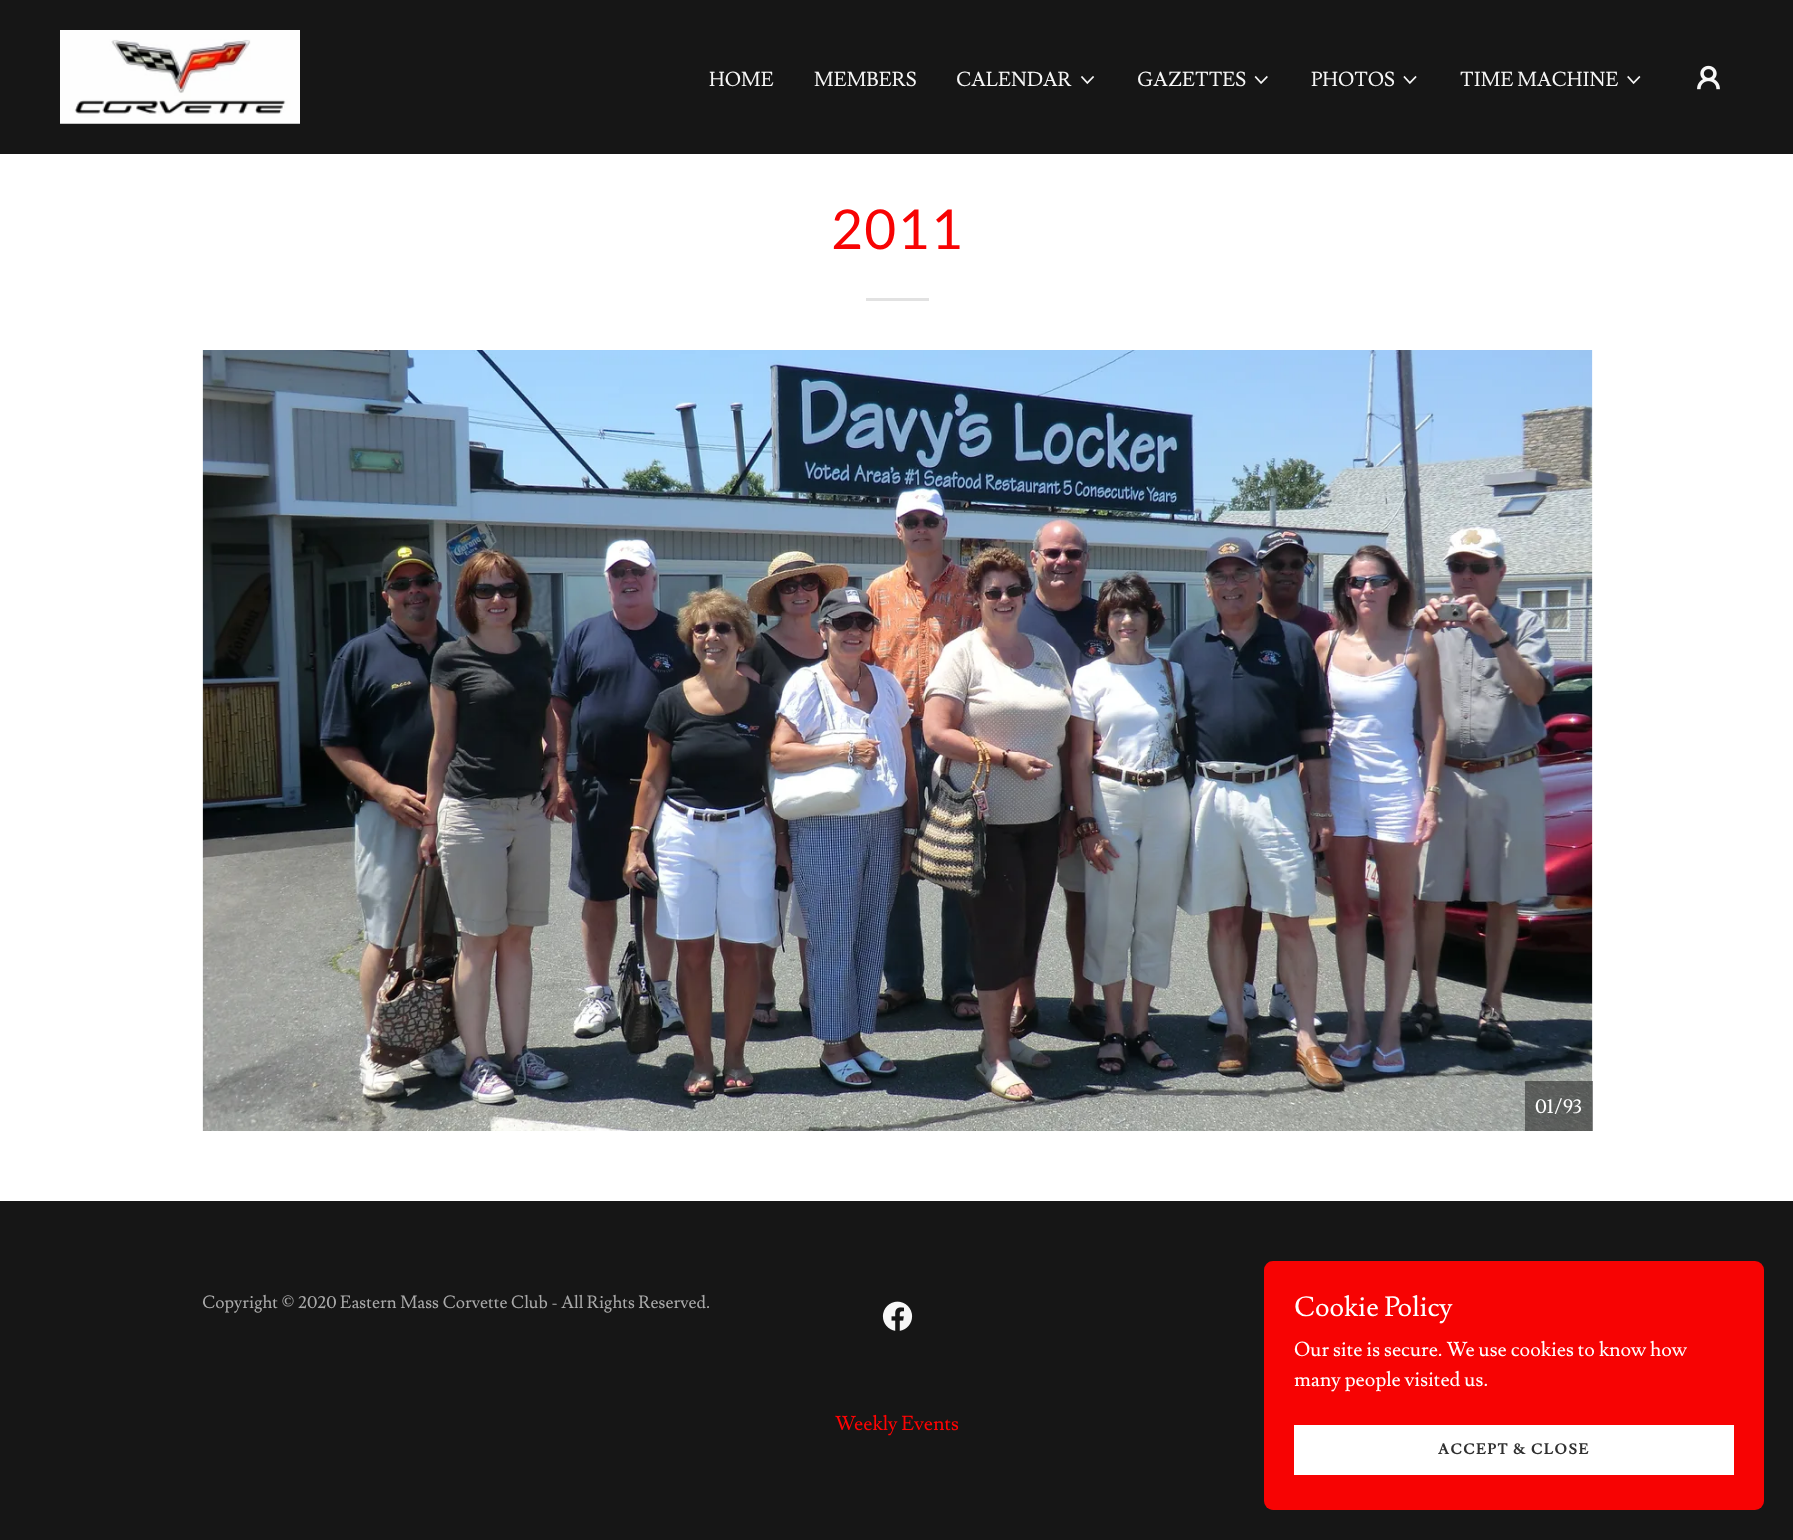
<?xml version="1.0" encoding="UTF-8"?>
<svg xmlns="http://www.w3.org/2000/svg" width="1793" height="1540">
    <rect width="100%" height="100%" fill="#161616"/>
    <image x="60" y="30" width="240" height="94" href="img_01.png"/>
    <text x="709" y="86" font-family="Lusitana" font-size="20" fill="#F7F7F7">HOME</text>
    <text x="814" y="86" font-family="Lusitana" font-size="20" fill="#F7F7F7">MEMBERS</text>
    <text x="956" y="86" font-family="Lusitana" font-size="20" fill="#F7F7F7">CALENDAR</text>
    <image x="1080" y="76" width="15" height="9" href="img_02.png"/>
    <text x="1137" y="86" font-family="Lusitana" font-size="20" fill="#F7F7F7">GAZETTES</text>
    <image x="1254" y="75" width="14" height="9" href="img_03.png"/>
    <text x="1311" y="86" font-family="Lusitana" font-size="20" fill="#F7F7F7">PHOTOS</text>
    <image x="1403" y="75" width="14" height="10" href="img_04.png"/>
    <text x="1460" y="86" font-family="Lusitana" font-size="20" fill="#F7F7F7">TIME MACHINE</text>
    <image x="1627" y="75" width="14" height="10" href="img_05.png"/>
    <image x="1697" y="65" width="23" height="25" href="img_06.png"/>
    <rect x="0" y="154" width="1793" height="1047" fill="#FFFFFF"/>
    <text x="831" y="249" font-family="Lato" font-size="55" letter-spacing="1.25" fill="#F70303">2011</text>
    <rect x="866" y="298" width="63" height="3" fill="#E2E2E2"/>
    <image x="202" y="350" width="1391" height="781" href="img_07.png"/>
    <rect x="1525" y="1081" width="68" height="50" fill="#161616" fill-opacity="0.5"/>
    <text x="1535" y="1113" font-family="Lusitana" font-size="20" fill="#FFFFFF">01/93</text>
    <text x="202" y="1308" font-family="Lusitana" font-size="17.5" fill="#A9A9A9">Copyright © 2020 Eastern Mass Corvette Club - All Rights Reserved.</text>
    <image x="882" y="1301" width="31" height="30" href="img_08.png"/>
    <text x="835" y="1430" font-family="Lusitana" font-size="20" fill="#FF0303">Weekly Events</text>
    <rect x="1264" y="1261" width="500" height="249" rx="9" fill="#F70303"/>
    <text x="1294" y="1316" font-family="Lusitana" font-size="27.5" fill="#FFFFFF">Cookie Policy</text>
    <text font-family="Lusitana" font-size="20" fill="#FFFFFF">
        <tspan x="1294" y="1356">Our site is secure. We use cookies to know how</tspan>
        <tspan x="1294" y="1386">many people visited us.</tspan>
    </text>
    <rect x="1294" y="1425" width="440" height="50" fill="#FFFFFF"/>
    <text x="1438" y="1454" font-family="Lusitana" font-size="15" font-weight="700" letter-spacing="1.25" fill="#303030">ACCEPT &amp; CLOSE</text>
</svg>
